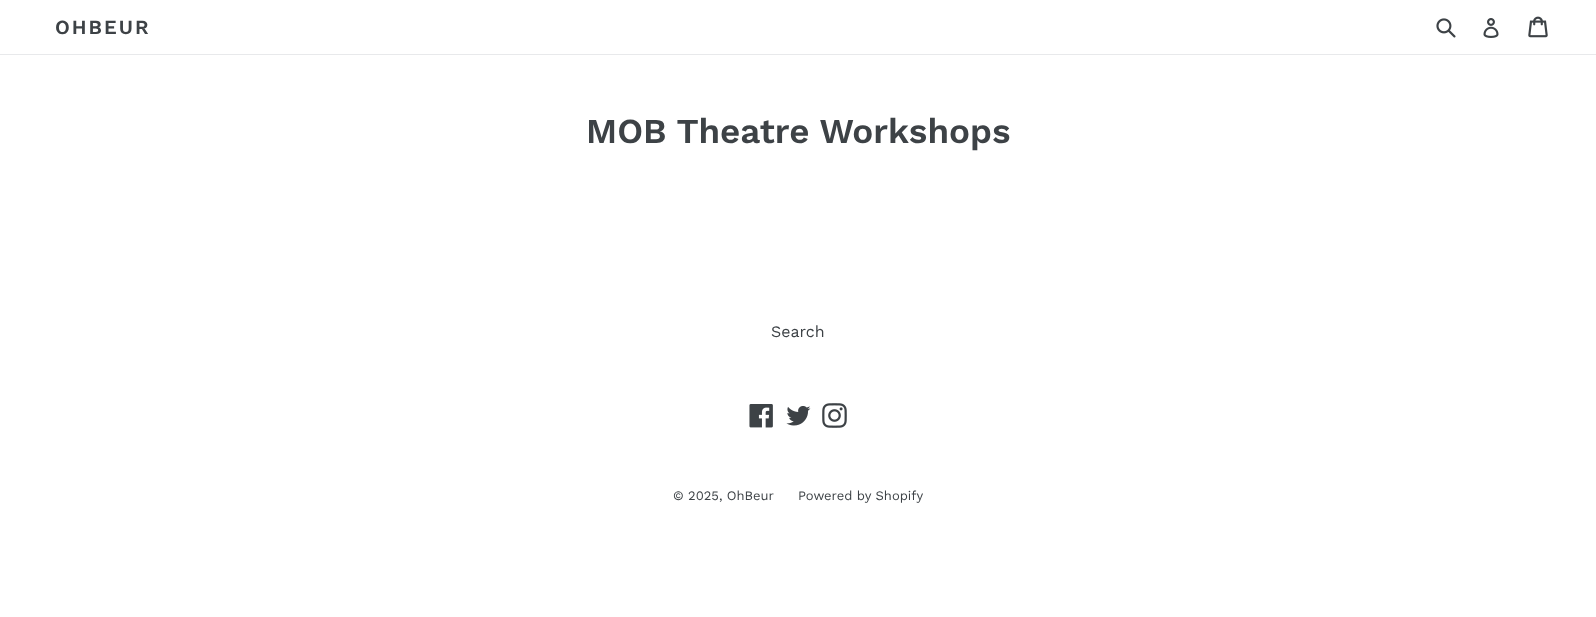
<?xml version="1.0" encoding="UTF-8"?>
<svg xmlns="http://www.w3.org/2000/svg" width="1596" height="617">
    <rect width="100%" height="100%" fill="#FFFFFF"/>
    <rect x="0" y="54" width="1596" height="1" fill="#E8E9EB"/>
    <text x="55" y="34" font-family="Work Sans" font-size="20" font-weight="600" letter-spacing="2" fill="#3D4246">OHBEUR</text>
    <image x="1436" y="18" width="20" height="20" href="img_01.png"/>
    <image x="1483" y="18" width="16" height="20" href="img_02.png"/>
    <image x="1528" y="16" width="20" height="22" href="img_03.png"/>
    <text x="586" y="143" font-family="Work Sans" font-size="35" font-weight="600" fill="#3D4246">MOB Theatre Workshops</text>
    <text x="771" y="337" font-family="Work Sans" font-size="16" fill="#3D4246">Search</text>
    <image x="749" y="404" width="24" height="24" href="img_04.png"/>
    <image x="786" y="406" width="25" height="20" href="img_05.png"/>
    <image x="822" y="403" width="25" height="25" href="img_06.png"/>
    <text x="673" y="500" font-family="Work Sans" font-size="13" fill="#3D4246">© 2025, OhBeur</text>
    <text x="798" y="500" font-family="Work Sans" font-size="13" fill="#3D4246">Powered by Shopify</text>
</svg>
